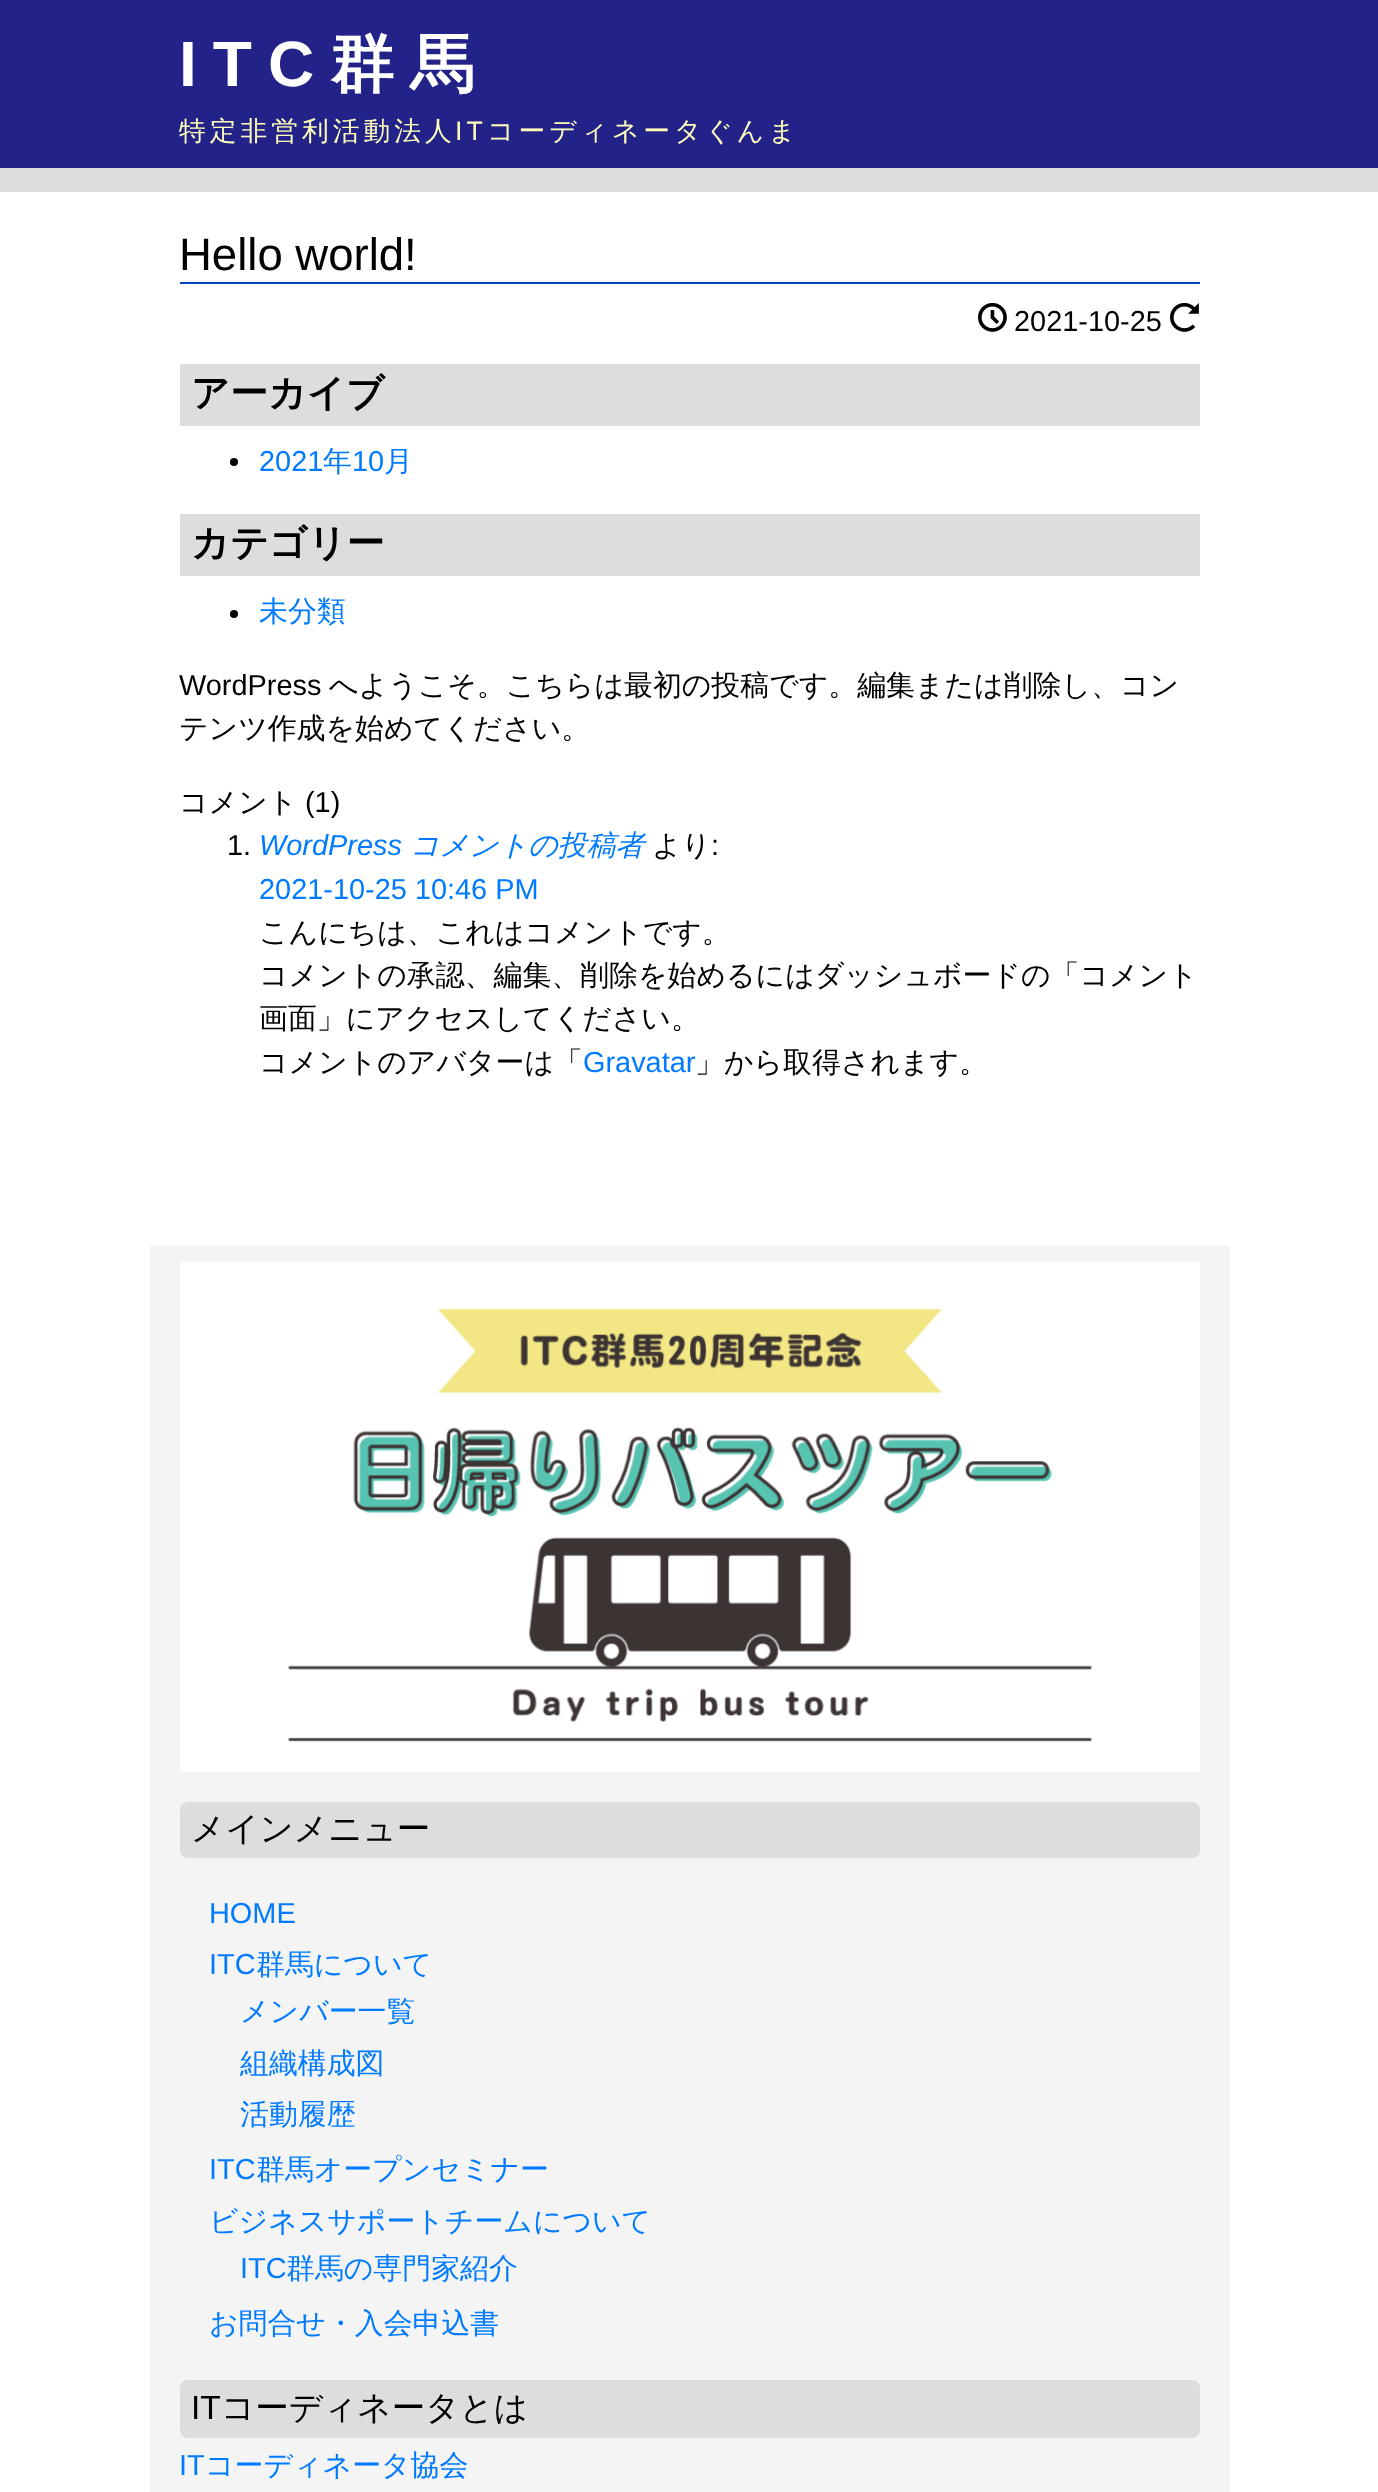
<?xml version="1.0" encoding="UTF-8"?>
<svg xmlns="http://www.w3.org/2000/svg" width="1378" height="2492">
    <rect width="100%" height="100%" fill="#FFFFFF"/>
    <rect x="0" y="0" width="1378" height="168" fill="#222288"/>
    <text x="179" y="86" font-family="Liberation Sans" font-size="64" font-weight="700" letter-spacing="16" fill="#FFFFFF">ITC</text>
    <text x="330" y="86" font-family="WenQuanYi Zen Hei" font-size="64" font-weight="700" letter-spacing="16" fill="#FFFFFF">群馬</text>
    <text x="179" y="140" font-family="WenQuanYi Zen Hei" font-size="26.75" font-weight="500" letter-spacing="4" fill="#FFFFBB">特定非営利活動法人</text>
    <text x="455" y="140" font-family="Liberation Sans" font-size="26.75" letter-spacing="4" fill="#FFFFBB">IT</text>
    <text x="487" y="140" font-family="WenQuanYi Zen Hei" font-size="26.75" font-weight="500" letter-spacing="4" fill="#FFFFBB">コーディネータぐんま</text>
    <rect x="0" y="168" width="1378" height="24" fill="#DDDDDD"/>
    <rect x="180" y="282" width="1020" height="2" fill="#0044BB"/>
    <text x="179" y="270" font-family="Liberation Sans" font-size="45.5" fill="#000000">Hello world!</text>
    <image x="978" y="302" width="29" height="30" href="img_01.png"/>
    <text x="1014" y="331" font-family="Liberation Sans" font-size="28.9" fill="#000000">2021-10-25</text>
    <image x="1170" y="302" width="29" height="30" href="img_02.png"/>
    <rect x="180" y="364" width="1020" height="62" fill="#DDDDDD"/>
    <text x="191" y="406" font-family="WenQuanYi Zen Hei" font-size="38" font-weight="700" fill="#000000">アーカイブ</text>
    <circle cx="234" cy="462" r="4" fill="#000000"/>
    <text x="259" y="471" font-family="Liberation Sans" font-size="28.9" fill="#007BFF">2021</text>
    <text x="323" y="471" font-family="WenQuanYi Zen Hei" font-size="28.9" font-weight="500" fill="#007BFF">年</text>
    <text x="352" y="471" font-family="Liberation Sans" font-size="28.9" fill="#007BFF">10</text>
    <text x="384" y="471" font-family="WenQuanYi Zen Hei" font-size="28.9" font-weight="500" fill="#007BFF">月</text>
    <rect x="180" y="514" width="1020" height="62" fill="#DDDDDD"/>
    <text x="191" y="556" font-family="WenQuanYi Zen Hei" font-size="38" font-weight="700" fill="#000000">カテゴリー</text>
    <circle cx="234" cy="614" r="4" fill="#000000"/>
    <text x="259" y="621" font-family="WenQuanYi Zen Hei" font-size="28.9" font-weight="500" fill="#007BFF">未分類</text>
    <text x="179" y="695" font-family="Liberation Sans" font-size="28.9" fill="#000000">WordPress</text>
    <text x="329" y="695" font-family="WenQuanYi Zen Hei" font-size="28.9" font-weight="500" fill="#000000">へようこそ。こちらは最初の投稿です。編集または削除し、コン</text>
    <text x="179" y="738" font-family="WenQuanYi Zen Hei" font-size="28.9" font-weight="500" fill="#000000">テンツ作成を始めてください。</text>
    <text x="179" y="812" font-family="WenQuanYi Zen Hei" font-size="28.9" font-weight="500" fill="#000000">コメント</text>
    <text x="305" y="812" font-family="Liberation Sans" font-size="28.9" fill="#000000">(1)</text>
    <text x="227" y="855" font-family="Liberation Sans" font-size="28.9" fill="#000000">1.</text>
    <text x="259" y="855" font-family="Liberation Sans" font-size="28.9" font-style="italic" fill="#007BFF">WordPress</text>
    <text x="410" y="855" font-family="WenQuanYi Zen Hei" font-size="28.9" font-weight="500" font-style="italic" fill="#007BFF">コメントの投稿者</text>
    <text x="652" y="855" font-family="WenQuanYi Zen Hei" font-size="28.9" font-weight="500" fill="#000000">より</text>
    <text x="711" y="855" font-family="Liberation Sans" font-size="28.9" fill="#000000">:</text>
    <text x="259" y="899" font-family="Liberation Sans" font-size="28.9" fill="#007BFF">2021-10-25 10:46 PM</text>
    <text font-family="WenQuanYi Zen Hei" font-size="28.9" font-weight="500" fill="#000000">
        <tspan x="259" y="942">こんにちは、これはコメントです。</tspan>
        <tspan x="259" y="985">コメントの承認、編集、削除を始めるにはダッシュボードの「コメント</tspan>
        <tspan x="259" y="1028">画面」にアクセスしてください。</tspan>
        <tspan x="259" y="1072">コメントのアバターは「</tspan>
    </text>
    <text x="583" y="1072" font-family="Liberation Sans" font-size="28.9" fill="#007BFF">Gravatar</text>
    <text x="695" y="1072" font-family="WenQuanYi Zen Hei" font-size="28.9" font-weight="500" fill="#000000">」から取得されます。</text>
    <rect x="150" y="1246" width="1080" height="1246" fill="#F4F4F4"/>
    <image x="180" y="1262" width="1020" height="510" href="img_03.png"/>
    <rect x="180" y="1802" width="1020" height="56" rx="8" fill="#DDDDDD"/>
    <text x="191" y="1840" font-family="WenQuanYi Zen Hei" font-size="33.5" font-weight="500" fill="#000000">メインメニュー</text>
    <text font-family="Liberation Sans" font-size="28.9" fill="#007BFF">
        <tspan x="209" y="1923">HOME</tspan>
        <tspan x="209" y="1974">ITC</tspan>
    </text>
    <text x="256" y="1974" font-family="WenQuanYi Zen Hei" font-size="28.9" font-weight="500" fill="#007BFF">群馬について</text>
    <text font-family="WenQuanYi Zen Hei" font-size="28.9" font-weight="500" fill="#007BFF">
        <tspan x="240" y="2021">メンバー一覧</tspan>
        <tspan x="240" y="2073">組織構成図</tspan>
        <tspan x="240" y="2124">活動履歴</tspan>
    </text>
    <text x="209" y="2179" font-family="Liberation Sans" font-size="28.9" fill="#007BFF">ITC</text>
    <text x="256" y="2179" font-family="WenQuanYi Zen Hei" font-size="28.9" font-weight="500" fill="#007BFF">群馬オープンセミナー</text>
    <text x="209" y="2231" font-family="WenQuanYi Zen Hei" font-size="28.9" font-weight="500" fill="#007BFF">ビジネスサポートチームについて</text>
    <text x="240" y="2278" font-family="Liberation Sans" font-size="28.9" fill="#007BFF">ITC</text>
    <text x="286" y="2278" font-family="WenQuanYi Zen Hei" font-size="28.9" font-weight="500" fill="#007BFF">群馬の専門家紹介</text>
    <text x="209" y="2333" font-family="WenQuanYi Zen Hei" font-size="28.9" font-weight="500" fill="#007BFF">お問合せ・入会申込書</text>
    <rect x="180" y="2380" width="1020" height="58" rx="8" fill="#DDDDDD"/>
    <text x="191" y="2419" font-family="Liberation Sans" font-size="33.5" fill="#000000">IT</text>
    <text x="221" y="2419" font-family="WenQuanYi Zen Hei" font-size="33.5" font-weight="500" fill="#000000">コーディネータとは</text>
    <text x="179" y="2475" font-family="Liberation Sans" font-size="28.9" fill="#007BFF">IT</text>
    <text x="205" y="2475" font-family="WenQuanYi Zen Hei" font-size="28.9" font-weight="500" fill="#007BFF">コーディネータ協会</text>
</svg>
